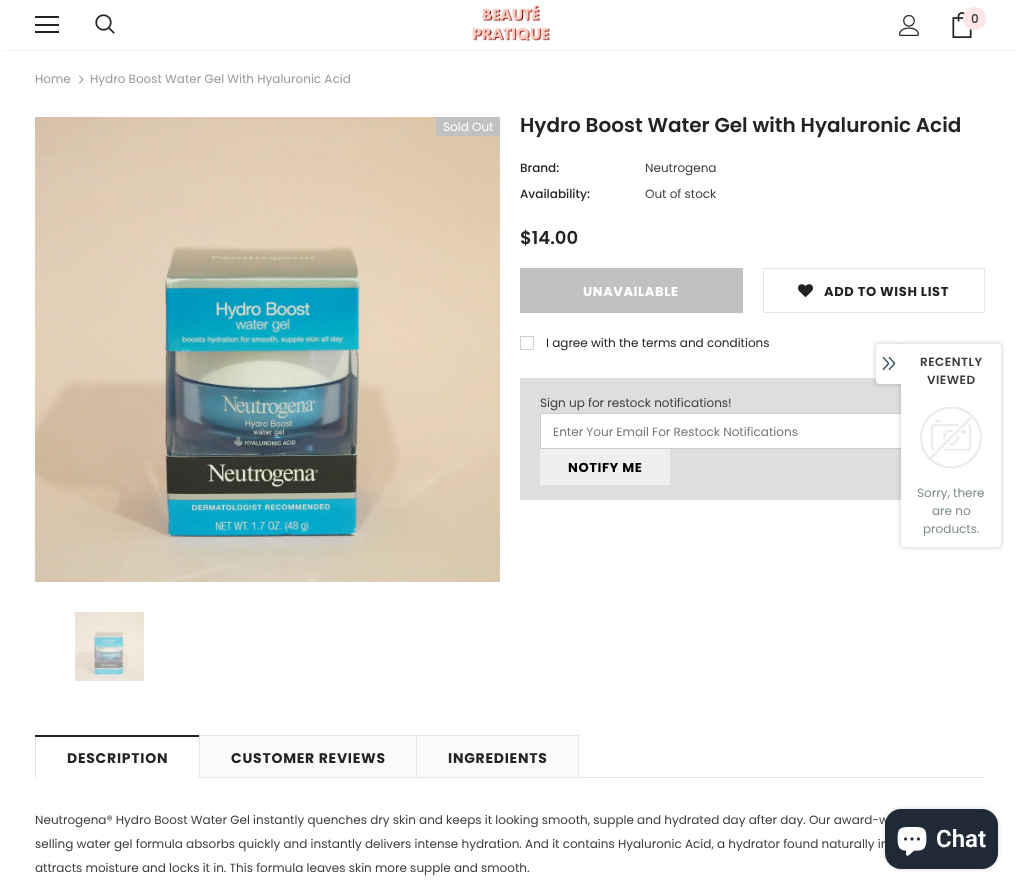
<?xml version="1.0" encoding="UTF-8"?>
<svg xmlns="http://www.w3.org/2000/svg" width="1020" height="890">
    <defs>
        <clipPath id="clip1"><rect x="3" y="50" width="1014" height="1"/></clipPath>
        <filter id="blur1" x="-50%" y="-200%" width="200%" height="500%"><feGaussianBlur stdDeviation="1.5"/></filter>
        <filter id="blur2" x="-50%" y="-200%" width="200%" height="500%"><feGaussianBlur stdDeviation="2.5"/></filter>
    </defs>
    <rect width="100%" height="100%" fill="#FFFFFF"/>
    <g clip-path="url(#clip1)">
        <rect x="3" y="6" width="1014" height="44" fill="#000000" fill-opacity="0.12" filter="url(#blur1)"/>
    </g>
    <rect x="35" y="16" width="24" height="2" fill="#232323"/>
    <rect x="35" y="24" width="24" height="2" fill="#232323"/>
    <rect x="35" y="31" width="24" height="2" fill="#232323"/>
    <image x="95" y="14" width="20" height="20" href="img_01.png"/>
    <image x="472" y="4" width="78" height="37" href="img_02.png"/>
    <image x="899" y="15" width="20" height="21" href="img_03.png"/>
    <image x="952" y="12" width="20" height="26" href="img_04.png"/>
    <circle cx="974.5" cy="18.5" r="11.5" fill="#FFE5E5"/>
    <text x="971" y="23" font-family="Poppins" font-size="12" font-weight="500" fill="#323232">0</text>
    <text x="35" y="83" font-family="Poppins" font-size="12" fill="#999999">Home</text>
    <image x="79" y="75" width="5" height="9" href="img_05.png"/>
    <text x="90" y="83" font-family="Poppins" font-size="12" fill="#999999">Hydro Boost Water Gel With Hyaluronic Acid</text>
    <image x="35" y="117" width="465" height="465" href="img_06.png"/>
    <rect x="436" y="117" width="64" height="19" rx="1" fill="#C1C1C1"/>
    <text x="443" y="131" font-family="Poppins" font-size="12" fill="#FFFFFF">Sold Out</text>
    <image x="75" y="612" width="69" height="69" href="img_07.png"/>
    <text x="520" y="132" font-family="Poppins" font-size="20" font-weight="600" fill="#232323">Hydro Boost Water Gel with Hyaluronic Acid</text>
    <text x="520" y="172" font-family="Poppins" font-size="12" font-weight="500" fill="#232323">Brand:</text>
    <text x="645" y="172" font-family="Poppins" font-size="12" fill="#3C3C3C">Neutrogena</text>
    <text x="520" y="198" font-family="Poppins" font-size="12" font-weight="500" fill="#232323">Availability:</text>
    <text x="645" y="198" font-family="Poppins" font-size="12" fill="#3C3C3C">Out of stock</text>
    <text x="520" y="244" font-family="Poppins" font-size="18" font-weight="600" fill="#232323">$14.00</text>
    <rect x="520" y="268" width="223" height="45" fill="#C1C1C1"/>
    <text x="583" y="296" font-family="Poppins" font-size="13" font-weight="700" letter-spacing="0.6" fill="#FFFFFF">UNAVAILABLE</text>
    <rect x="763.5" y="268.5" width="221" height="44" fill="none" stroke="#E6E6E6"/>
    <image x="798" y="284" width="15" height="13" href="img_08.png"/>
    <text x="824" y="296" font-family="Poppins" font-size="13" font-weight="700" letter-spacing="0.6" fill="#232323">ADD TO WISH LIST</text>
    <rect x="520.5" y="336.5" width="13" height="13" fill="none" stroke="#D0D0D0"/>
    <text x="546" y="347" font-family="Poppins" font-size="12" fill="#232323">I agree with the terms and conditions</text>
    <rect x="520" y="378" width="381" height="122" fill="#DEDEDE"/>
    <text x="540" y="407" font-family="Poppins" font-size="12" fill="#3C3C3C">Sign up for restock notifications!</text>
    <rect x="541" y="414" width="360" height="34" fill="#FFFFFF"/>
    <rect x="540.5" y="413.5" width="379" height="35" fill="none" stroke="#CBCBCB"/>
    <text x="553" y="436" font-family="Poppins" font-size="12" fill="#757575">Enter Your Email For Restock Notifications</text>
    <rect x="540" y="449" width="130" height="36" fill="#EFEFEF"/>
    <text x="568" y="472" font-family="Poppins" font-size="13" font-weight="700" letter-spacing="0.6" fill="#000000">NOTIFY ME</text>
    <rect x="35" y="777" width="950" height="1" fill="#E6E6E6"/>
    <rect x="35" y="735" width="1" height="42" fill="#E6E6E6"/>
    <rect x="35" y="735" width="165" height="2" fill="#232323"/>
    <text x="67" y="763" font-family="Poppins" font-size="14" font-weight="700" letter-spacing="0.75" fill="#232323">DESCRIPTION</text>
    <rect x="36" y="777" width="163" height="1" fill="#FFFFFF"/>
    <rect x="200" y="736" width="216" height="41" fill="#FAFAFA"/>
    <rect x="199" y="735" width="380" height="1" fill="#E6E6E6"/>
    <rect x="199" y="735" width="1" height="42" fill="#E6E6E6"/>
    <text x="231" y="763" font-family="Poppins" font-size="14" font-weight="700" letter-spacing="0.75" fill="#232323">CUSTOMER REVIEWS</text>
    <rect x="417" y="736" width="161" height="41" fill="#FAFAFA"/>
    <rect x="578" y="735" width="1" height="42" fill="#E6E6E6"/>
    <rect x="416" y="735" width="1" height="42" fill="#E6E6E6"/>
    <text x="448" y="763" font-family="Poppins" font-size="14" font-weight="700" letter-spacing="0.75" fill="#232323">INGREDIENTS</text>
    <text x="35" y="824" font-family="Poppins" font-size="12" fill="#3C3C3C">Neutrogena® Hydro Boost Water Gel instantly quenches dry skin and keeps it looking smooth, supple and hydrated day after day. Our award-w</text>
    <text x="35" y="848" font-family="Poppins" font-size="12" fill="#3C3C3C">selling water gel formula absorbs quickly and instantly delivers intense hydration. And it contains Hyaluronic Acid, a hydrator found naturally in</text>
    <text x="35" y="872" font-family="Poppins" font-size="12" fill="#3C3C3C">attracts moisture and locks it in. This formula leaves skin more supple and smooth.</text>
    <rect x="899" y="342" width="104" height="207" rx="5" fill="#000000" fill-opacity="0.1" filter="url(#blur1)"/>
    <path d="M 901 344 H 998 C 999.5 344 1001 345.5 1001 347 V 544 C 1001 545.5 999.5 547 998 547 H 904 C 902.5 547 901 545.5 901 544 Z" fill="#FFFFFF"/>
    <rect x="874" y="342" width="30" height="44" rx="5" fill="#000000" fill-opacity="0.1" filter="url(#blur1)"/>
    <path d="M 879 344 H 902 V 384 H 879 C 877.5 384 876 382.5 876 381 V 347 C 876 345.5 877.5 344 879 344 Z" fill="#FFFFFF"/>
    <image x="882" y="357" width="14" height="14" href="img_09.png"/>
    <rect x="901" y="344" width="5" height="43" fill="#FFFFFF"/>
    <text x="920" y="366" font-family="Poppins" font-size="12" font-weight="600" letter-spacing="0.5" fill="#3C3C3C">RECENTLY</text>
    <text x="927" y="384" font-family="Poppins" font-size="12" font-weight="600" letter-spacing="0.5" fill="#3C3C3C">VIEWED</text>
    <image x="920" y="407" width="62" height="62" href="img_10.png"/>
    <text x="917" y="497" font-family="Poppins" font-size="12" fill="#7D8B8E">Sorry, there</text>
    <text x="932" y="515" font-family="Poppins" font-size="12" fill="#7D8B8E">are no</text>
    <text x="923" y="533" font-family="Poppins" font-size="12" fill="#7D8B8E">products.</text>
    <rect x="885" y="809" width="113" height="60" rx="16" fill="#000000" fill-opacity="0.15" filter="url(#blur2)"/>
    <rect x="885" y="809" width="113" height="60" rx="16" fill="#202A36"/>
    <image x="897" y="827" width="30" height="29" href="img_11.png"/>
    <text x="936" y="847" font-family="Roboto" font-size="24" font-weight="600" fill="#FFFFFF">Chat</text>
</svg>
